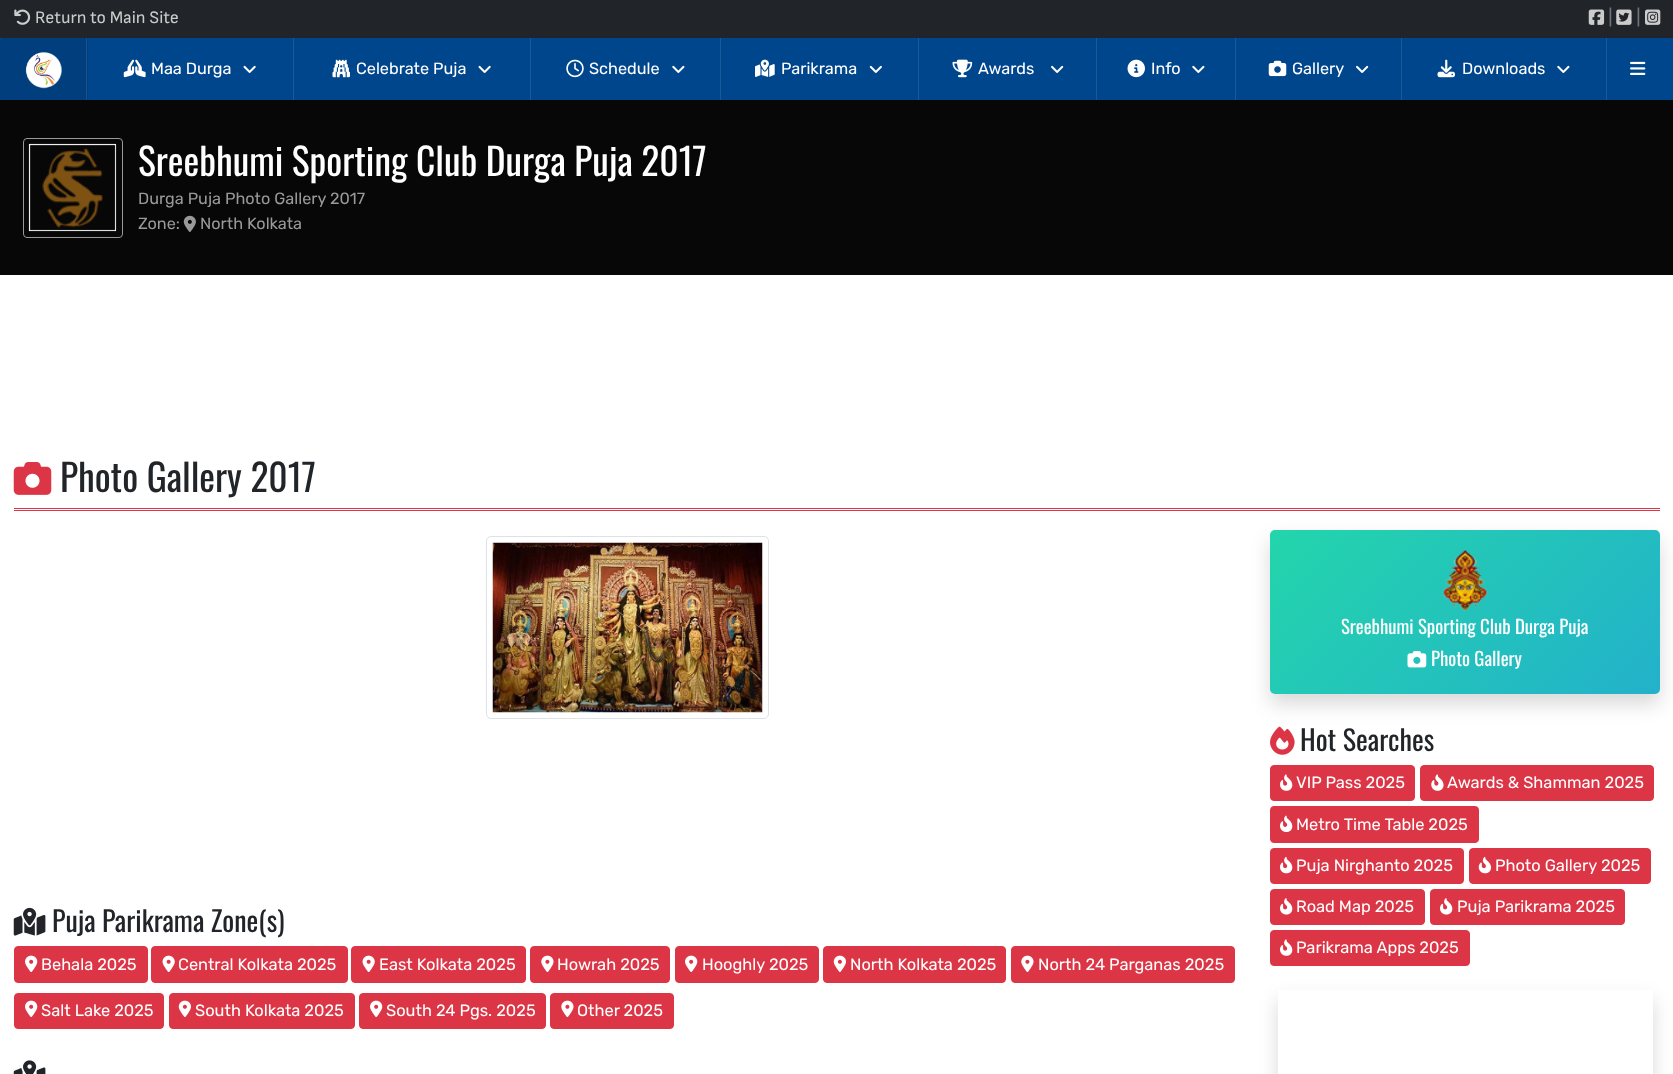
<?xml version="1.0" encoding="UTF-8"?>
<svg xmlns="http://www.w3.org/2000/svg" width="1673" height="1074">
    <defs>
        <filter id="blur1" x="-50%" y="-200%" width="200%" height="500%"><feGaussianBlur stdDeviation="9.5"/></filter>
        <linearGradient id="g1" gradientUnits="userSpaceOnUse" x1="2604" y1="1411" x2="1496" y2="304"><stop offset="0" stop-color="#EE7752"/><stop offset="0.33" stop-color="#E73C7E"/><stop offset="0.67" stop-color="#23A6D5"/><stop offset="1" stop-color="#23D5AB"/></linearGradient>
        <clipPath id="clip1"><path d="M 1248 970 H 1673 V 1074 H 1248 Z M 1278 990 H 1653 V 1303 H 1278 Z" clip-rule="evenodd"/></clipPath>
    </defs>
    <rect width="100%" height="100%" fill="#FFFFFF"/>
    <rect x="0" y="0" width="1673" height="38" fill="#212529"/>
    <image x="14" y="9" width="17" height="16" href="img_01.png"/>
    <text x="35" y="23" font-family="Sofia Sans" font-size="17.5" fill="#CCCCCC">Return to Main Site</text>
    <image x="1588" y="9" width="17" height="16" href="img_02.png"/>
    <text x="1608" y="23" font-family="Sofia Sans" font-size="18.75" fill="#6C757D">|</text>
    <image x="1616" y="9" width="16" height="16" href="img_03.png"/>
    <text x="1636" y="23" font-family="Sofia Sans" font-size="18.75" fill="#6C757D">|</text>
    <image x="1645" y="9" width="16" height="16" href="img_04.png"/>
    <rect x="0" y="38" width="1673" height="62" fill="#00468C"/>
    <path d="M 4 38 H 88 V 100 H 0 V 42 C 0 40 2 38 4 38 Z" fill="#003E7D"/>
    <rect x="86" y="38" width="1" height="62" fill="#1A518A"/>
    <image x="25" y="52" width="37" height="37" href="img_05.png"/>
    <rect x="293" y="38" width="1" height="62" fill="#1A5998"/>
    <image x="123" y="59" width="23" height="19" href="img_06.png"/>
    <text x="151" y="74" font-family="Rubik" font-size="16.25" font-weight="300" fill="#FFFFFF">Maa Durga</text>
    <image x="243" y="65" width="13" height="8" href="img_07.png"/>
    <rect x="530" y="38" width="1" height="62" fill="#1A5998"/>
    <image x="332" y="59" width="18" height="19" href="img_08.png"/>
    <text x="356" y="74" font-family="Rubik" font-size="16.25" font-weight="300" fill="#FFFFFF">Celebrate Puja</text>
    <image x="478" y="65" width="13" height="8" href="img_07.png"/>
    <rect x="720" y="38" width="1" height="62" fill="#1A5998"/>
    <image x="566" y="59" width="18" height="19" href="img_09.png"/>
    <text x="589" y="74" font-family="Rubik" font-size="16.25" font-weight="300" fill="#FFFFFF">Schedule</text>
    <image x="672" y="65" width="13" height="8" href="img_10.png"/>
    <rect x="918" y="38" width="1" height="62" fill="#1A5998"/>
    <image x="755" y="59" width="20" height="18" href="img_11.png"/>
    <text x="781" y="74" font-family="Rubik" font-size="16.25" font-weight="300" fill="#FFFFFF">Parikrama</text>
    <image x="869" y="65" width="13" height="8" href="img_12.png"/>
    <rect x="1096" y="38" width="1" height="62" fill="#1A5998"/>
    <image x="952" y="59" width="21" height="19" href="img_13.png"/>
    <text x="978" y="74" font-family="Rubik" font-size="16.25" font-weight="300" fill="#FFFFFF">Awards</text>
    <image x="1051" y="65" width="13" height="8" href="img_14.png"/>
    <rect x="1235" y="38" width="1" height="62" fill="#1A5998"/>
    <image x="1127" y="59" width="18" height="19" href="img_15.png"/>
    <text x="1151" y="74" font-family="Rubik" font-size="16.25" font-weight="300" fill="#FFFFFF">Info</text>
    <image x="1192" y="65" width="13" height="8" href="img_10.png"/>
    <rect x="1401" y="38" width="1" height="62" fill="#1A5998"/>
    <image x="1268" y="60" width="19" height="17" href="img_16.png"/>
    <text x="1292" y="74" font-family="Rubik" font-size="16.25" font-weight="300" fill="#FFFFFF">Gallery</text>
    <image x="1356" y="65" width="13" height="8" href="img_14.png"/>
    <rect x="1606" y="38" width="1" height="62" fill="#1A5998"/>
    <image x="1437" y="59" width="18" height="19" href="img_17.png"/>
    <text x="1462" y="74" font-family="Rubik" font-size="16.25" font-weight="300" fill="#FFFFFF">Downloads</text>
    <image x="1557" y="65" width="13" height="8" href="img_10.png"/>
    <image x="1630" y="61" width="16" height="14" href="img_18.png"/>
    <rect x="0" y="100" width="1673" height="175" fill="#070707"/>
    <rect x="23.5" y="138.5" width="99" height="99" rx="3.5" fill="none" stroke="#999999"/>
    <image x="28" y="143" width="89" height="89" href="img_19.png"/>
    <text x="138" y="176" font-family="Oswald" font-size="37.5" fill="#FFFFFF">Sreebhumi Sporting Club Durga Puja 2017</text>
    <text font-family="Rubik" font-size="16.25" font-weight="300" fill="#999999">
        <tspan x="138" y="204">Durga Puja Photo Gallery 2017</tspan>
        <tspan x="138" y="229">Zone:</tspan>
    </text>
    <image x="183" y="215" width="13" height="17" href="img_20.png"/>
    <text x="200" y="229" font-family="Rubik" font-size="16.25" font-weight="300" fill="#999999">North Kolkata</text>
    <image x="13" y="462" width="39" height="33" href="img_21.png"/>
    <text x="60" y="492" font-family="Oswald" font-size="37.5" fill="#212529">Photo Gallery 2017</text>
    <rect x="14" y="508" width="1646" height="1" fill="#DC3545"/>
    <rect x="14" y="510" width="1646" height="1" fill="#DC3545"/>
    <rect x="486.5" y="536.5" width="282" height="182" rx="4.5" fill="none" stroke="#DEE2E6"/>
    <image x="492" y="542" width="271" height="171" href="img_22.png"/>
    <image x="13" y="907" width="33" height="29" href="img_23.png"/>
    <text x="52" y="932" font-family="Oswald" font-size="28" fill="#212529">Puja Parikrama Zone(s)</text>
    <rect x="14.5" y="946.5" width="133" height="36" rx="3.5" fill="#DC3545" stroke="#DC3545"/>
    <image x="25" y="955" width="13" height="17" href="img_24.png"/>
    <text x="41" y="970" font-family="Rubik" font-size="16.4" font-weight="300" fill="#FFFFFF">Behala 2025</text>
    <rect x="151.5" y="946.5" width="196" height="36" rx="3.5" fill="#DC3545" stroke="#DC3545"/>
    <image x="162" y="955" width="13" height="17" href="img_25.png"/>
    <text x="178" y="970" font-family="Rubik" font-size="16.4" font-weight="300" fill="#FFFFFF">Central Kolkata 2025</text>
    <rect x="351.5" y="946.5" width="174" height="36" rx="3.5" fill="#DC3545" stroke="#DC3545"/>
    <image x="362" y="955" width="13" height="17" href="img_25.png"/>
    <text x="379" y="970" font-family="Rubik" font-size="16.4" font-weight="300" fill="#FFFFFF">East Kolkata 2025</text>
    <rect x="530.5" y="946.5" width="139" height="36" rx="3.5" fill="#DC3545" stroke="#DC3545"/>
    <image x="541" y="955" width="13" height="17" href="img_26.png"/>
    <text x="557" y="970" font-family="Rubik" font-size="16.4" font-weight="300" fill="#FFFFFF">Howrah 2025</text>
    <rect x="675.5" y="946.5" width="143" height="36" rx="3.5" fill="#DC3545" stroke="#DC3545"/>
    <image x="685" y="955" width="13" height="17" href="img_24.png"/>
    <text x="702" y="970" font-family="Rubik" font-size="16.4" font-weight="300" fill="#FFFFFF">Hooghly 2025</text>
    <rect x="823.5" y="946.5" width="182" height="36" rx="3.5" fill="#DC3545" stroke="#DC3545"/>
    <image x="833" y="955" width="13" height="17" href="img_27.png"/>
    <text x="850" y="970" font-family="Rubik" font-size="16.4" font-weight="300" fill="#FFFFFF">North Kolkata 2025</text>
    <rect x="1011.5" y="946.5" width="223" height="36" rx="3.5" fill="#DC3545" stroke="#DC3545"/>
    <image x="1021" y="955" width="13" height="17" href="img_26.png"/>
    <text x="1038" y="970" font-family="Rubik" font-size="16.4" font-weight="300" fill="#FFFFFF">North 24 Parganas 2025</text>
    <rect x="14.5" y="993.5" width="149" height="35" rx="3.5" fill="#DC3545" stroke="#DC3545"/>
    <image x="25" y="1000" width="13" height="17" href="img_24.png"/>
    <text x="41" y="1016" font-family="Rubik" font-size="16.4" font-weight="300" fill="#FFFFFF">Salt Lake 2025</text>
    <rect x="169.5" y="993.5" width="185" height="35" rx="3.5" fill="#DC3545" stroke="#DC3545"/>
    <image x="178" y="1000" width="13" height="17" href="img_27.png"/>
    <text x="195" y="1016" font-family="Rubik" font-size="16.4" font-weight="300" fill="#FFFFFF">South Kolkata 2025</text>
    <rect x="359.5" y="993.5" width="186" height="35" rx="3.5" fill="#DC3545" stroke="#DC3545"/>
    <image x="370" y="1000" width="13" height="17" href="img_24.png"/>
    <text x="386" y="1016" font-family="Rubik" font-size="16.4" font-weight="300" fill="#FFFFFF">South 24 Pgs. 2025</text>
    <rect x="550.5" y="993.5" width="123" height="35" rx="3.5" fill="#DC3545" stroke="#DC3545"/>
    <image x="561" y="1000" width="13" height="17" href="img_26.png"/>
    <text x="577" y="1016" font-family="Rubik" font-size="16.4" font-weight="300" fill="#FFFFFF">Other 2025</text>
    <image x="13" y="1060" width="33" height="14" href="img_28.png"/>
    <rect x="1270" y="540" width="390" height="164" rx="5" fill="#000000" fill-opacity="0.15" filter="url(#blur1)"/>
    <rect x="1270" y="530" width="390" height="164" rx="5" fill="url(#g1)"/>
    <image x="1442" y="548" width="46" height="64" href="img_29.png"/>
    <text x="1341" y="634" font-family="Oswald" font-size="18.75" fill="#FFFFFF">Sreebhumi Sporting Club Durga Puja</text>
    <image x="1407" y="651" width="20" height="17" href="img_30.png"/>
    <text x="1431" y="666" font-family="Oswald" font-size="18.75" fill="#FFFFFF">Photo Gallery</text>
    <image x="1270" y="726" width="25" height="29" href="img_31.png"/>
    <text x="1300" y="751" font-family="Oswald" font-size="28" fill="#212529">Hot Searches</text>
    <rect x="1270.5" y="765.5" width="144" height="35" rx="3.5" fill="#DC3545" stroke="#DC3545"/>
    <image x="1280" y="774" width="13" height="17" href="img_32.png"/>
    <text x="1296" y="788" font-family="Rubik" font-size="16.4" font-weight="300" fill="#FFFFFF">VIP Pass 2025</text>
    <rect x="1420.5" y="765.5" width="233" height="35" rx="3.5" fill="#DC3545" stroke="#DC3545"/>
    <image x="1431" y="774" width="13" height="17" href="img_33.png"/>
    <text x="1447" y="788" font-family="Rubik" font-size="16.4" font-weight="300" fill="#FFFFFF">Awards &amp; Shamman 2025</text>
    <rect x="1270.5" y="806.5" width="208" height="36" rx="3.5" fill="#DC3545" stroke="#DC3545"/>
    <image x="1280" y="815" width="13" height="18" href="img_34.png"/>
    <text x="1296" y="830" font-family="Rubik" font-size="16.4" font-weight="300" fill="#FFFFFF">Metro Time Table 2025</text>
    <rect x="1270.5" y="848.5" width="193" height="35" rx="3.5" fill="#DC3545" stroke="#DC3545"/>
    <image x="1280" y="856" width="13" height="18" href="img_35.png"/>
    <text x="1296" y="871" font-family="Rubik" font-size="16.4" font-weight="300" fill="#FFFFFF">Puja Nirghanto 2025</text>
    <rect x="1469.5" y="848.5" width="181" height="35" rx="3.5" fill="#DC3545" stroke="#DC3545"/>
    <image x="1478" y="856" width="14" height="18" href="img_36.png"/>
    <text x="1495" y="871" font-family="Rubik" font-size="16.4" font-weight="300" fill="#FFFFFF">Photo Gallery 2025</text>
    <rect x="1270.5" y="889.5" width="154" height="35" rx="3.5" fill="#DC3545" stroke="#DC3545"/>
    <image x="1280" y="898" width="13" height="17" href="img_37.png"/>
    <text x="1296" y="912" font-family="Rubik" font-size="16.4" font-weight="300" fill="#FFFFFF">Road Map 2025</text>
    <rect x="1430.5" y="889.5" width="194" height="35" rx="3.5" fill="#DC3545" stroke="#DC3545"/>
    <image x="1440" y="898" width="13" height="17" href="img_37.png"/>
    <text x="1457" y="912" font-family="Rubik" font-size="16.4" font-weight="300" fill="#FFFFFF">Puja Parikrama 2025</text>
    <rect x="1270.5" y="930.5" width="199" height="35" rx="3.5" fill="#DC3545" stroke="#DC3545"/>
    <image x="1280" y="939" width="13" height="17" href="img_32.png"/>
    <text x="1296" y="953" font-family="Rubik" font-size="16.4" font-weight="300" fill="#FFFFFF">Parikrama Apps 2025</text>
    <g clip-path="url(#clip1)">
        <rect x="1278" y="1000" width="375" height="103" fill="#000000" fill-opacity="0.15" filter="url(#blur1)"/>
    </g>
</svg>
